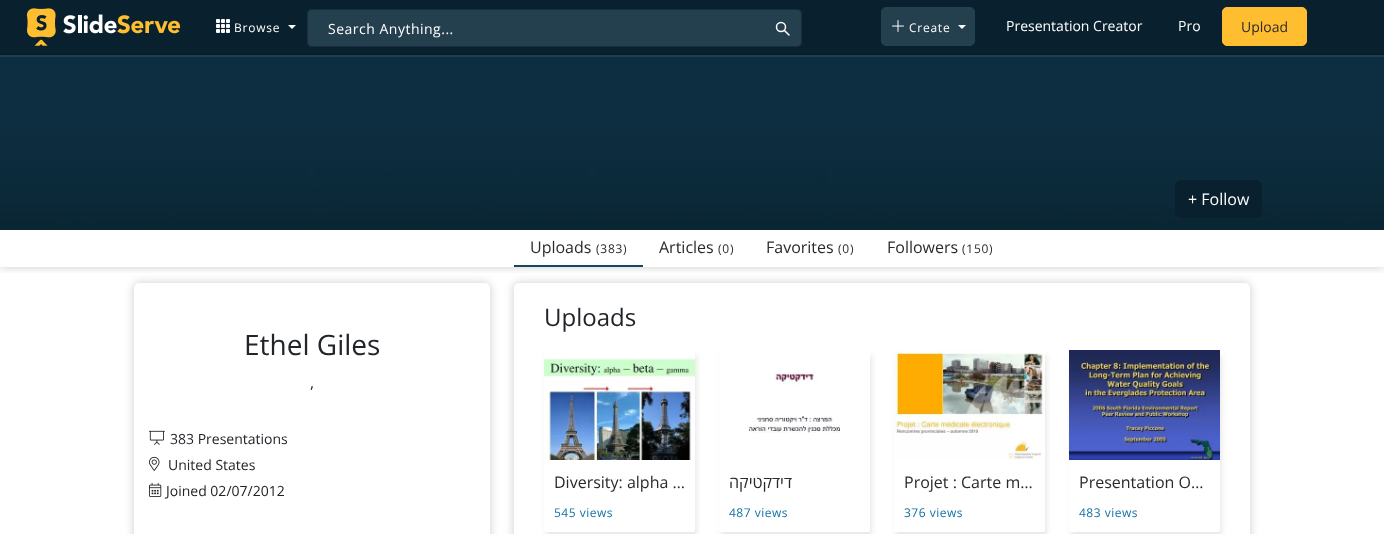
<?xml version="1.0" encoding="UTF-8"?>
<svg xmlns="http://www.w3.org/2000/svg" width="1384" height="534">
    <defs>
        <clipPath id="clip1"><rect x="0" y="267" width="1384" height="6"/></clipPath>
        <filter id="blur1" x="-50%" y="-200%" width="200%" height="500%"><feGaussianBlur stdDeviation="5"/></filter>
        <filter id="blur2" x="-50%" y="-200%" width="200%" height="500%"><feGaussianBlur stdDeviation="2.5"/></filter>
    </defs>
    <rect width="100%" height="100%" fill="#FFFFFF"/>
    <rect x="0" y="55" width="1384" height="2" fill="#1E3D4E"/>
    <rect x="0" y="0" width="1384" height="54" fill="#09212E"/>
    <rect x="0" y="54" width="1384" height="1" fill="#061924"/>
    <image x="26" y="8" width="155" height="38" href="img_01.png"/>
    <image x="216" y="19" width="14" height="14" href="img_02.png"/>
    <text x="234" y="32" font-family="Open Sans" font-size="12" letter-spacing="0.75" fill="#FFFFFF">Browse</text>
    <path d="M 288 25 H 296 L 292 29 Z" fill="#FFFFFF"/>
    <rect x="881.5" y="7.5" width="93" height="38" rx="4.5" fill="#243F4E" stroke="#243F4E"/>
    <image x="892" y="20" width="12" height="12" href="img_03.png"/>
    <text x="909" y="32" font-family="Open Sans" font-size="12" letter-spacing="0.75" fill="#FFFFFF">Create</text>
    <path d="M 958 25 H 966 L 962 29 Z" fill="#FFFFFF"/>
    <text x="1006" y="31" font-family="Open Sans" font-size="14" fill="#FFFFFF">Presentation Creator</text>
    <text x="1178" y="31" font-family="Open Sans" font-size="14" fill="#FFFFFF">Pro</text>
    <rect x="1222.5" y="7.5" width="84" height="38" rx="4.5" fill="#FFBE2F" stroke="#FFBE2F"/>
    <text x="1241" y="32" font-family="Open Sans" font-size="14" fill="#2B2A2A">Upload</text>
    <rect x="307" y="9" width="495" height="38" rx="5" fill="#243F4E"/>
    <circle cx="781" cy="27" r="4.5" fill="none" stroke="#FFFFFF" stroke-width="1.5"/>
    <path d="M 789 35 L 784.5 30.5" fill="none" stroke="#FFFFFF" stroke-width="1.5" stroke-linecap="round" stroke-linejoin="round"/>
    <rect x="307.5" y="9.5" width="494" height="37" rx="4.5" fill="none" stroke="#152E40"/>
    <text x="328" y="34" font-family="Open Sans" font-size="14" letter-spacing="0.5" fill="#FFFFFF">Search Anything...</text>
    <g clip-path="url(#clip1)">
        <rect x="0" y="230" width="1384" height="37" fill="#000000" fill-opacity="0.2" filter="url(#blur1)"/>
    </g>
    <image x="0" y="57" width="1384" height="173" href="img_04.png"/>
    <rect x="1175.5" y="180.5" width="86" height="37" rx="5.5" fill="#09212E" stroke="#09212E"/>
    <text x="1188" y="205" font-family="Open Sans" font-size="16" fill="#FFFFFF">+ Follow</text>
    <rect x="514" y="265" width="129" height="2" fill="#15495F"/>
    <text x="530" y="253" font-family="Open Sans" font-size="16" fill="#2B2A2A">Uploads</text>
    <text x="596" y="253" font-family="Open Sans" font-size="12" letter-spacing="0.75" fill="#2B2A2A">(383)</text>
    <text x="659" y="253" font-family="Open Sans" font-size="16" fill="#2B2A2A">Articles</text>
    <text x="718" y="253" font-family="Open Sans" font-size="12" letter-spacing="0.75" fill="#2B2A2A">(0)</text>
    <text x="766" y="253" font-family="Open Sans" font-size="16" fill="#2B2A2A">Favorites</text>
    <text x="838" y="253" font-family="Open Sans" font-size="12" letter-spacing="0.75" fill="#2B2A2A">(0)</text>
    <text x="887" y="253" font-family="Open Sans" font-size="16" fill="#2B2A2A">Followers</text>
    <text x="962" y="253" font-family="Open Sans" font-size="12" letter-spacing="0.75" fill="#2B2A2A">(150)</text>
    <rect x="134" y="283" width="356" height="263" rx="5" fill="#000000" fill-opacity="0.2" filter="url(#blur1)"/>
    <rect x="134" y="283" width="356" height="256" rx="5" fill="#FFFFFF"/>
    <text x="244" y="355" font-family="Open Sans" font-size="28" fill="#212529">Ethel Giles</text>
    <text x="310" y="388" font-family="Open Sans" font-size="16" fill="#212529">,</text>
    <image x="149" y="430" width="16" height="15" href="img_05.png"/>
    <text x="170" y="444" font-family="Open Sans" font-size="14" fill="#212529">383 Presentations</text>
    <image x="149" y="456" width="11" height="15" href="img_06.png"/>
    <text x="168" y="470" font-family="Open Sans" font-size="14" fill="#212529">United States</text>
    <image x="149" y="482" width="13" height="15" href="img_07.png"/>
    <text x="166" y="496" font-family="Open Sans" font-size="14" fill="#212529">Joined 02/07/2012</text>
    <rect x="514" y="283" width="736" height="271" rx="5" fill="#000000" fill-opacity="0.2" filter="url(#blur1)"/>
    <rect x="514" y="283" width="736" height="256" rx="5" fill="#FFFFFF"/>
    <text x="544" y="326" font-family="Open Sans" font-size="24" fill="#212529">Uploads</text>
    <rect x="546" y="355" width="151" height="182" rx="2" fill="#C7C7C7" fill-opacity="0.4" filter="url(#blur2)"/>
    <rect x="544" y="350" width="151" height="182" rx="2" fill="#FFFFFF"/>
    <image x="544" y="358" width="151" height="102" href="img_08.png"/>
    <text x="554" y="488" font-family="Open Sans" font-size="16" fill="#2B2A2A">Diversity: alpha …</text>
    <text x="554" y="517" font-family="Open Sans" font-size="12" letter-spacing="0.5" fill="#1271A5">545 views</text>
    <rect x="721" y="355" width="151" height="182" rx="2" fill="#C7C7C7" fill-opacity="0.4" filter="url(#blur2)"/>
    <rect x="719" y="350" width="151" height="182" rx="2" fill="#FFFFFF"/>
    <image x="749" y="372" width="91" height="61" href="img_09.png"/>
    <text x="792" y="488" font-family="Open Sans" font-size="16" direction="rtl" fill="#2B2A2A">דידקטיקה</text>
    <text x="729" y="517" font-family="Open Sans" font-size="12" letter-spacing="0.5" fill="#1271A5">487 views</text>
    <rect x="896" y="355" width="151" height="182" rx="2" fill="#C7C7C7" fill-opacity="0.4" filter="url(#blur2)"/>
    <rect x="894" y="350" width="151" height="182" rx="2" fill="#FFFFFF"/>
    <image x="894" y="350" width="151" height="110" href="img_10.png"/>
    <text x="904" y="488" font-family="Open Sans" font-size="16" fill="#2B2A2A">Projet : Carte m…</text>
    <text x="904" y="517" font-family="Open Sans" font-size="12" letter-spacing="0.5" fill="#1271A5">376 views</text>
    <rect x="1071" y="355" width="151" height="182" rx="2" fill="#C7C7C7" fill-opacity="0.4" filter="url(#blur2)"/>
    <rect x="1069" y="350" width="151" height="182" rx="2" fill="#FFFFFF"/>
    <image x="1069" y="350" width="151" height="110" href="img_11.png"/>
    <text x="1079" y="488" font-family="Open Sans" font-size="16" fill="#2B2A2A">Presentation O…</text>
    <text x="1079" y="517" font-family="Open Sans" font-size="12" letter-spacing="0.5" fill="#1271A5">483 views</text>
</svg>
